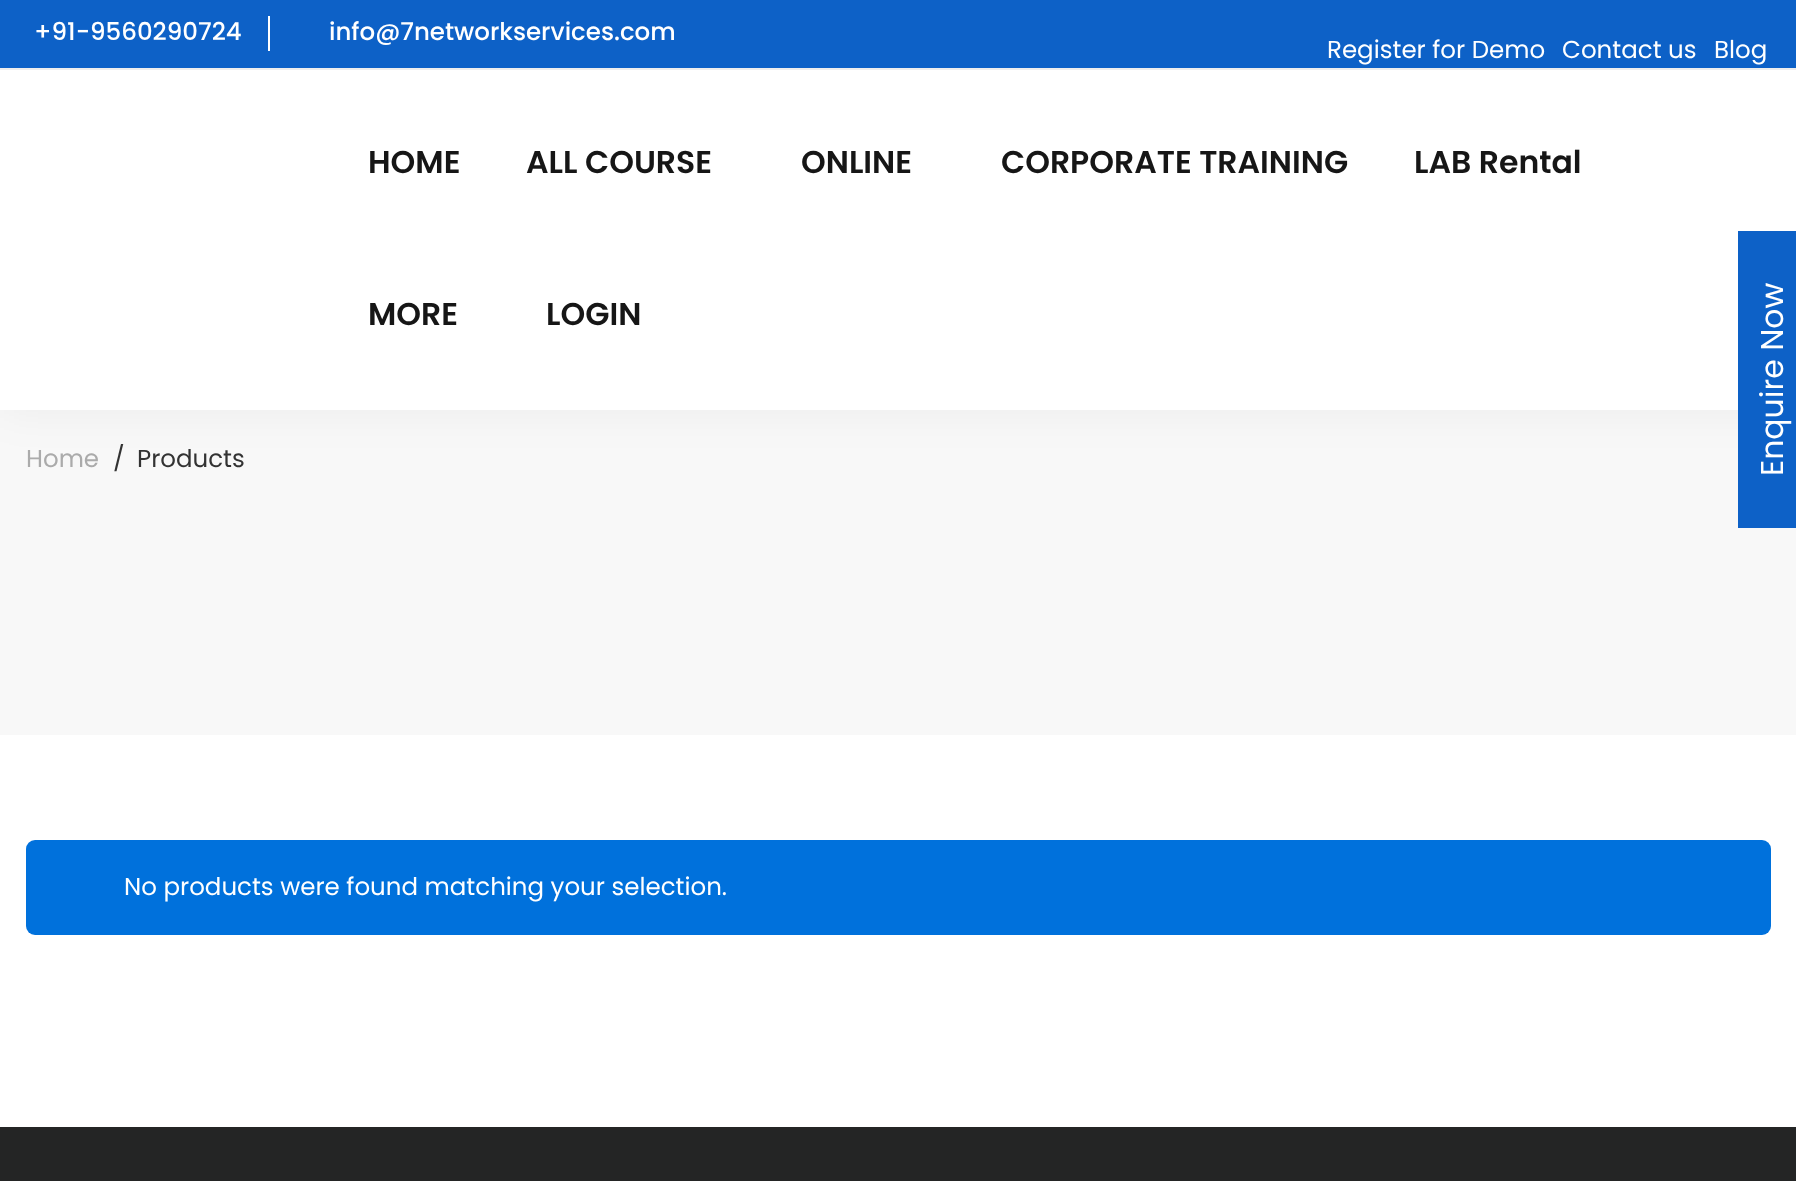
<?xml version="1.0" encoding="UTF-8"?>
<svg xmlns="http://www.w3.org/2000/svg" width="1796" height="1181">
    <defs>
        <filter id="blur1" x="-50%" y="-200%" width="200%" height="500%"><feGaussianBlur stdDeviation="23"/></filter>
    </defs>
    <rect width="100%" height="100%" fill="#FFFFFF"/>
    <rect x="0" y="410" width="1796" height="325" fill="#F8F8F8"/>
    <rect x="0" y="0" width="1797" height="410" fill="#000000" fill-opacity="0.05" filter="url(#blur1)"/>
    <rect x="0" y="70" width="1796" height="340" fill="#FFFFFF"/>
    <rect x="0" y="0" width="1796" height="68" fill="#0D61C7"/>
    <rect x="0" y="68" width="1796" height="2" fill="#EEEEEE"/>
    <text x="34" y="40" font-family="Poppins" font-size="24.5" font-weight="500" fill="#FFFFFF">+91-9560290724</text>
    <rect x="268" y="16" width="2" height="35" fill="#FFFFFF"/>
    <text x="329" y="40" font-family="Poppins" font-size="24.5" font-weight="500" fill="#FFFFFF">info@7networkservices.com</text>
    <text x="1327" y="58" font-family="Poppins" font-size="24.5" fill="#FFFFFF">Register for Demo</text>
    <text x="1562" y="58" font-family="Poppins" font-size="24.5" fill="#FFFFFF">Contact us</text>
    <text x="1714" y="58" font-family="Poppins" font-size="24.5" fill="#FFFFFF">Blog</text>
    <text x="368" y="173" font-family="Poppins" font-size="31.5" font-weight="600" fill="#161616">HOME</text>
    <text x="526" y="173" font-family="Poppins" font-size="31.5" font-weight="600" fill="#161616">ALL COURSE</text>
    <text x="801" y="173" font-family="Poppins" font-size="31.5" font-weight="600" fill="#161616">ONLINE</text>
    <text x="1001" y="173" font-family="Poppins" font-size="31.5" font-weight="600" fill="#161616">CORPORATE TRAINING</text>
    <text x="1414" y="173" font-family="Poppins" font-size="31.5" font-weight="600" fill="#161616">LAB Rental</text>
    <text x="368" y="325" font-family="Poppins" font-size="31.5" font-weight="600" fill="#161616">MORE</text>
    <text x="546" y="325" font-family="Poppins" font-size="31.5" font-weight="600" fill="#161616">LOGIN</text>
    <text x="26" y="467" font-family="Poppins" font-size="24.5" fill="#ABABAB">Home</text>
    <text x="113" y="467" font-family="Poppins" font-size="24.5" fill="#333333">/</text>
    <text x="137" y="467" font-family="Poppins" font-size="24.5" fill="#333333">Products</text>
    <rect x="26" y="840" width="1745" height="95" rx="9" fill="#0071DC"/>
    <text x="124" y="895" font-family="Poppins" font-size="24.5" fill="#FFFFFF">No products were found matching your selection.</text>
    <rect x="0" y="1127" width="1796" height="54" fill="#242525"/>
    <rect x="1738" y="231" width="58" height="297" fill="#0D61C7"/>
    <text x="1783" y="476" transform="rotate(-90 1783 476)" font-family="Poppins" font-size="31.5" fill="#FFFFFF">Enquire Now</text>
</svg>
